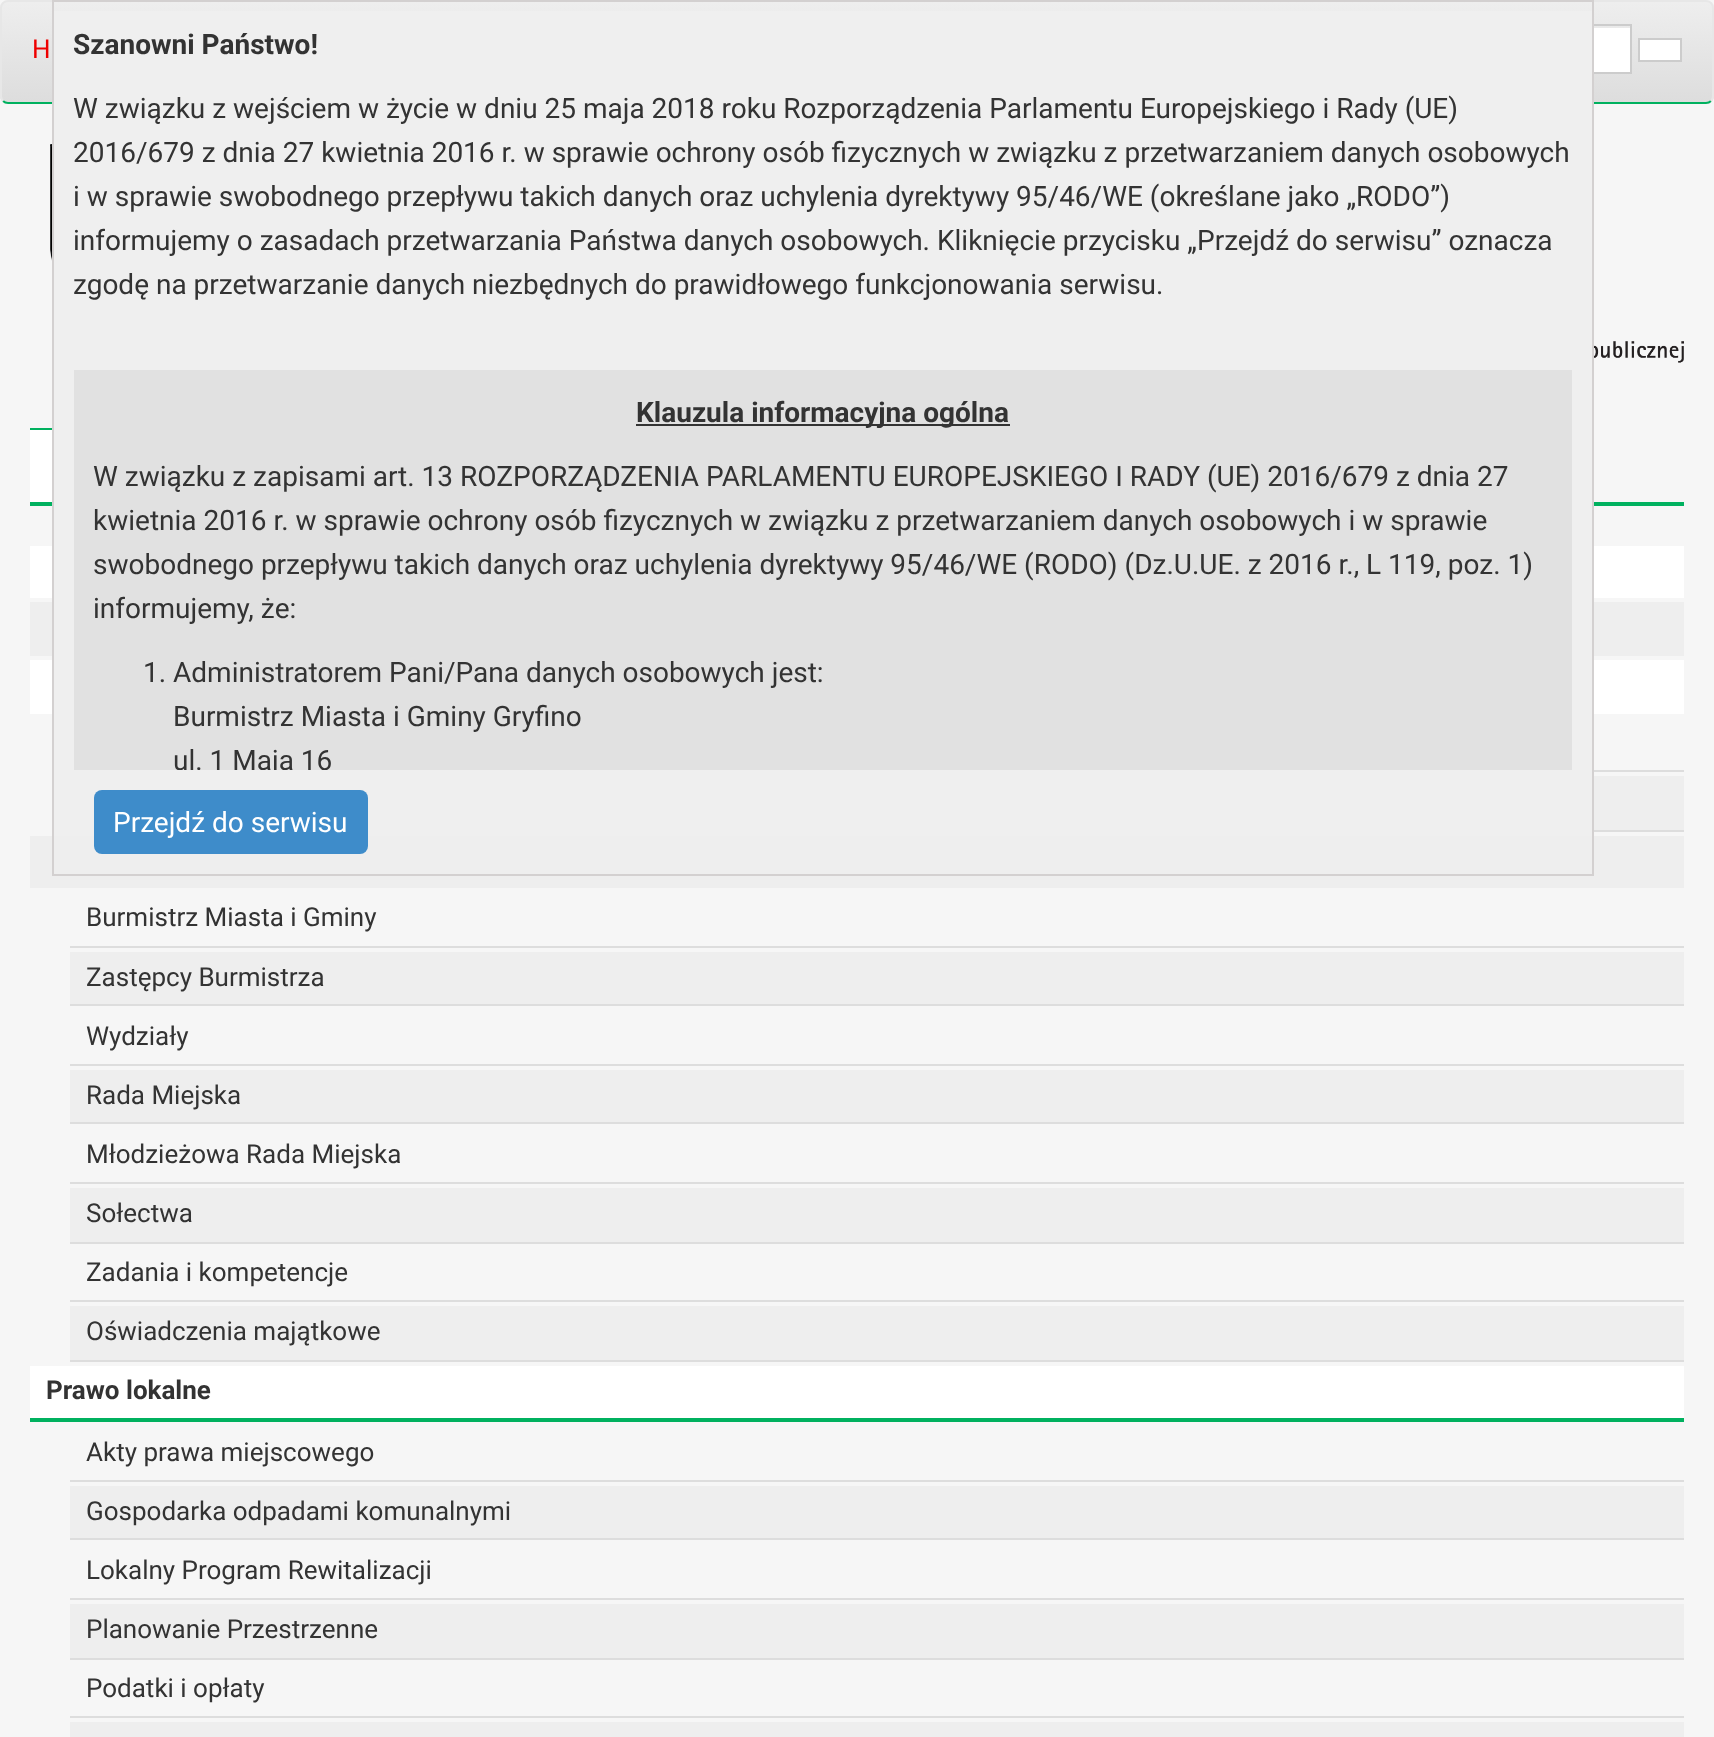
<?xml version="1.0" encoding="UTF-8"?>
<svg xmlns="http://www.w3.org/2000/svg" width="1714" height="1737">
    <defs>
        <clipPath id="clip1"><rect x="0" y="0" width="1714" height="104" rx="8"/></clipPath>
        <linearGradient id="g1" gradientUnits="userSpaceOnUse" x1="857" y1="2" x2="857" y2="102"><stop offset="0" stop-color="#EEEEEE"/><stop offset="1" stop-color="#DDDDDD"/></linearGradient>
        <clipPath id="clip2"><rect x="74" y="370" width="1498" height="400"/></clipPath>
    </defs>
    <rect width="100%" height="100%" fill="#F6F6F6"/>
    <g clip-path="url(#clip1)">
        <rect x="0" y="2" width="1714" height="100" fill="url(#g1)"/>
    </g>
    <path d="M 1711 101 C 1709.5 102.5 1708 103 1706 103 H 8 C 6 103 4.5 102.5 3 101" fill="none" stroke="#00B15F" stroke-width="2"/>
    <path d="M 3 101 C 1.5 99.5 1 98 1 96 V 8 C 1 6 1.5 4.5 3 3 C 4.5 1.5 6 1 8 1 H 1706 C 1708 1 1709.5 1.5 1711 3 C 1712.5 4.5 1713 6 1713 8 V 96 C 1713 98 1712.5 99.5 1711 101" fill="none" stroke="#E7E7E7" stroke-width="2"/>
    <text x="32" y="58" font-family="Roboto" font-size="26" fill="#EE0000">H</text>
    <rect x="1594" y="28" width="36" height="44" fill="#FFFFFF"/>
    <rect x="1315" y="25" width="316" height="48" fill="none" stroke="#CCCCCC" stroke-width="2"/>
    <rect x="1639" y="39" width="42" height="22" fill="#FFFFFF" stroke="#CCCCCC" stroke-width="2"/>
    <rect x="30" y="502" width="1654" height="4" fill="#00B15F"/>
    <rect x="30" y="546" width="1654" height="52" fill="#FFFFFF"/>
    <rect x="30" y="602" width="1654" height="54" fill="#EEEEEE"/>
    <rect x="30" y="660" width="1654" height="54" fill="#FFFFFF"/>
    <rect x="54" y="11" width="1538" height="825" fill="#EFEFEF"/>
    <rect x="30" y="836" width="1654" height="52" fill="#EEEEEE"/>
    <rect x="53" y="1" width="1540" height="874" fill="none" stroke="#D3D0D0" stroke-width="2"/>
    <text x="73" y="54" font-family="Roboto" font-size="28" font-weight="700" fill="#333333">Szanowni Państwo!</text>
    <text font-family="Roboto" font-size="28" fill="#333333">
        <tspan x="73" y="118">W związku z wejściem w życie w dniu 25 maja 2018 roku Rozporządzenia Parlamentu Europejskiego i Rady (UE)</tspan>
        <tspan x="73" y="162">2016/679 z dnia 27 kwietnia 2016 r. w sprawie ochrony osób fizycznych w związku z przetwarzaniem danych osobowych</tspan>
        <tspan x="73" y="206">i w sprawie swobodnego przepływu takich danych oraz uchylenia dyrektywy 95/46/WE (określane jako „RODO”)</tspan>
        <tspan x="73" y="250">informujemy o zasadach przetwarzania Państwa danych osobowych. Kliknięcie przycisku „Przejdź do serwisu” oznacza</tspan>
        <tspan x="73" y="294">zgodę na przetwarzanie danych niezbędnych do prawidłowego funkcjonowania serwisu.</tspan>
    </text>
    <rect x="74" y="370" width="1498" height="400" fill="#E1E1E1"/>
    <rect x="636" y="424" width="374" height="2" fill="#333333"/>
    <text x="636" y="422" font-family="Roboto" font-size="28" font-weight="700" fill="#333333">Klauzula informacyjna ogólna</text>
    <text font-family="Roboto" font-size="28" fill="#333333">
        <tspan x="93" y="486">W związku z zapisami art. 13 ROZPORZĄDZENIA PARLAMENTU EUROPEJSKIEGO I RADY (UE) 2016/679 z dnia 27</tspan>
        <tspan x="93" y="530">kwietnia 2016 r. w sprawie ochrony osób fizycznych w związku z przetwarzaniem danych osobowych i w sprawie</tspan>
        <tspan x="93" y="574">swobodnego przepływu takich danych oraz uchylenia dyrektywy 95/46/WE (RODO) (Dz.U.UE. z 2016 r., L 119, poz. 1)</tspan>
        <tspan x="93" y="618">informujemy, że:</tspan>
    </text>
    <text x="143" y="682" font-family="Roboto" font-size="28" fill="#333333">1. Administratorem Pani/Pana danych osobowych jest:</text>
    <text x="173" y="726" font-family="Roboto" font-size="28" fill="#333333">Burmistrz Miasta i Gminy Gryfino</text>
    <g clip-path="url(#clip2)">
        <text x="173" y="770" font-family="Roboto" font-size="28" fill="#333333">ul. 1 Maja 16</text>
    </g>
    <rect x="94" y="790" width="274" height="64" rx="8" fill="#3E8CCA"/>
    <text x="113" y="832" font-family="Roboto" font-size="28" fill="#FFFFFF">Przejdź do serwisu</text>
    <image x="50" y="144" width="2" height="117" href="img_01.png"/>
    <image x="1594" y="341" width="90" height="22" href="img_02.png"/>
    <rect x="30" y="430" width="22" height="72" fill="#FFFFFF"/>
    <rect x="30" y="428" width="22" height="2" fill="#00B15F"/>
    <rect x="1594" y="770" width="90" height="2" fill="#DDDDDD"/>
    <rect x="1594" y="776" width="90" height="54" fill="#EEEEEE"/>
    <rect x="1594" y="830" width="90" height="2" fill="#DDDDDD"/>
    <rect x="70" y="946" width="1614" height="2" fill="#DDDDDD"/>
    <text x="86" y="926" font-family="Roboto" font-size="26" fill="#333333">Burmistrz Miasta i Gminy</text>
    <rect x="70" y="952" width="1614" height="52" fill="#EEEEEE"/>
    <rect x="70" y="1004" width="1614" height="2" fill="#DDDDDD"/>
    <text x="86" y="986" font-family="Roboto" font-size="26" fill="#333333">Zastępcy Burmistrza</text>
    <rect x="70" y="1064" width="1614" height="2" fill="#DDDDDD"/>
    <text x="86" y="1045" font-family="Roboto" font-size="26" fill="#333333">Wydziały</text>
    <rect x="70" y="1070" width="1614" height="52" fill="#EEEEEE"/>
    <rect x="70" y="1122" width="1614" height="2" fill="#DDDDDD"/>
    <text x="86" y="1104" font-family="Roboto" font-size="26" fill="#333333">Rada Miejska</text>
    <rect x="70" y="1182" width="1614" height="2" fill="#DDDDDD"/>
    <text x="86" y="1163" font-family="Roboto" font-size="26" fill="#333333">Młodzieżowa Rada Miejska</text>
    <rect x="70" y="1188" width="1614" height="54" fill="#EEEEEE"/>
    <rect x="70" y="1242" width="1614" height="2" fill="#DDDDDD"/>
    <text x="86" y="1222" font-family="Roboto" font-size="26" fill="#333333">Sołectwa</text>
    <rect x="70" y="1300" width="1614" height="2" fill="#DDDDDD"/>
    <text x="86" y="1281" font-family="Roboto" font-size="26" fill="#333333">Zadania i kompetencje</text>
    <rect x="70" y="1306" width="1614" height="54" fill="#EEEEEE"/>
    <rect x="70" y="1360" width="1614" height="2" fill="#DDDDDD"/>
    <text x="86" y="1340" font-family="Roboto" font-size="26" fill="#333333">Oświadczenia majątkowe</text>
    <rect x="30" y="1366" width="1654" height="52" fill="#FFFFFF"/>
    <rect x="30" y="1418" width="1654" height="4" fill="#00B15F"/>
    <text x="46" y="1399" font-family="Roboto" font-size="26" font-weight="700" fill="#333333">Prawo lokalne</text>
    <rect x="70" y="1480" width="1614" height="2" fill="#DDDDDD"/>
    <text x="86" y="1461" font-family="Roboto" font-size="26" fill="#333333">Akty prawa miejscowego</text>
    <rect x="70" y="1486" width="1614" height="52" fill="#EEEEEE"/>
    <rect x="70" y="1538" width="1614" height="2" fill="#DDDDDD"/>
    <text x="86" y="1520" font-family="Roboto" font-size="26" fill="#333333">Gospodarka odpadami komunalnymi</text>
    <rect x="70" y="1598" width="1614" height="2" fill="#DDDDDD"/>
    <text x="86" y="1579" font-family="Roboto" font-size="26" fill="#333333">Lokalny Program Rewitalizacji</text>
    <rect x="70" y="1604" width="1614" height="54" fill="#EEEEEE"/>
    <rect x="70" y="1658" width="1614" height="2" fill="#DDDDDD"/>
    <text x="86" y="1638" font-family="Roboto" font-size="26" fill="#333333">Planowanie Przestrzenne</text>
    <rect x="70" y="1716" width="1614" height="2" fill="#DDDDDD"/>
    <text x="86" y="1697" font-family="Roboto" font-size="26" fill="#333333">Podatki i opłaty</text>
    <rect x="70" y="1722" width="1614" height="15" fill="#EEEEEE"/>
</svg>
